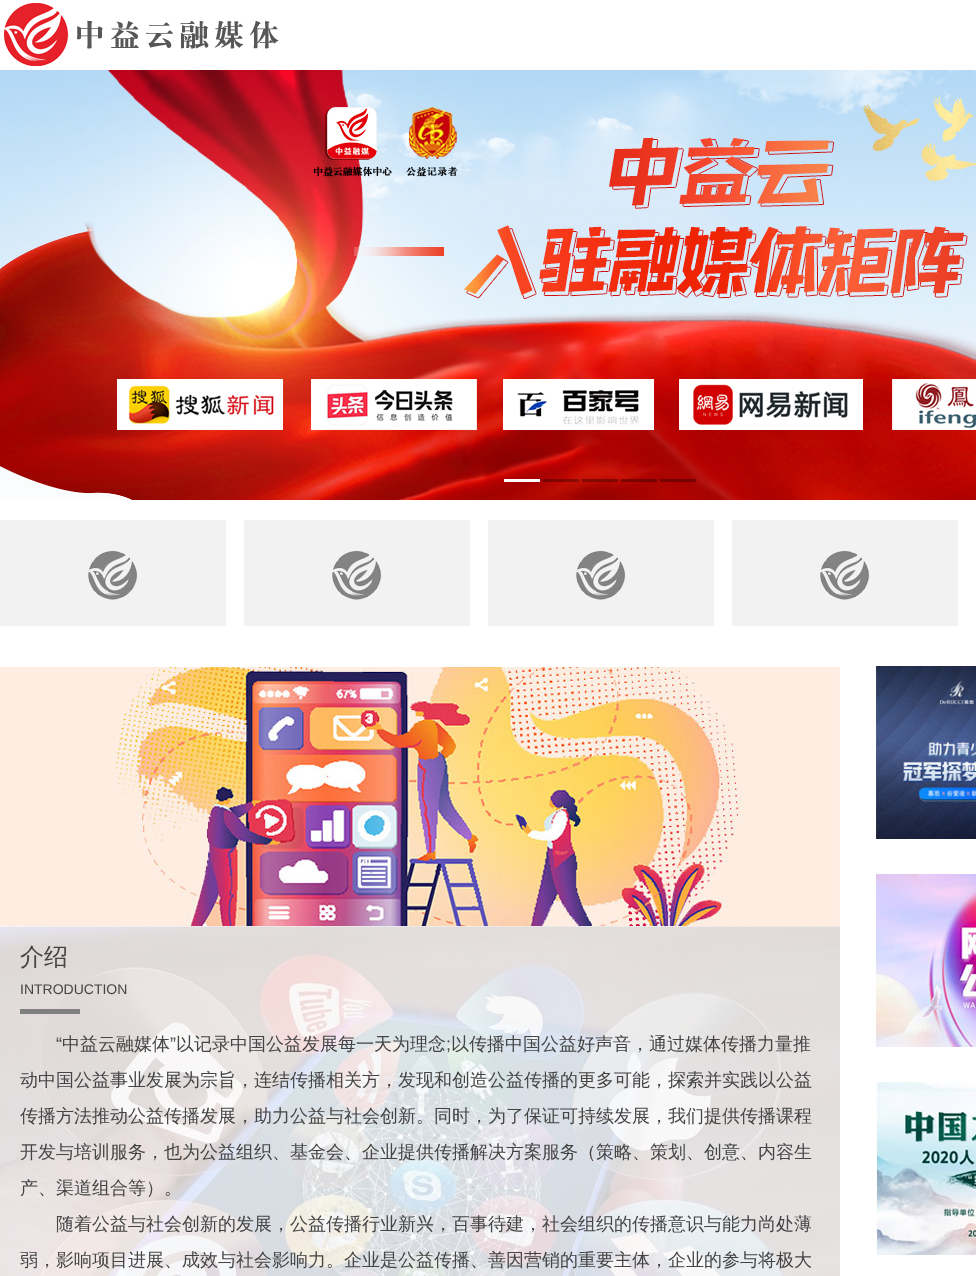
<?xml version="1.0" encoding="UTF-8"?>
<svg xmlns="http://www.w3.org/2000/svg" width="976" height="1276">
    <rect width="100%" height="100%" fill="#FFFFFF"/>
    <image x="4" y="3" width="275" height="63" href="img_01.png"/>
    <image x="0" y="70" width="976" height="430" href="img_02.png"/>
    <rect x="504" y="479" width="36" height="3" fill="#FFFFFF"/>
    <rect x="543" y="479" width="36" height="3" fill="#000000" fill-opacity="0.3"/>
    <rect x="582" y="479" width="36" height="3" fill="#000000" fill-opacity="0.3"/>
    <rect x="621" y="479" width="36" height="3" fill="#000000" fill-opacity="0.3"/>
    <rect x="660" y="479" width="36" height="3" fill="#000000" fill-opacity="0.3"/>
    <rect x="0" y="520" width="226" height="106" fill="#F2F2F2"/>
    <image x="88" y="551" width="49" height="49" href="img_03.png"/>
    <rect x="244" y="520" width="226" height="106" fill="#F2F2F2"/>
    <image x="332" y="551" width="49" height="49" href="img_03.png"/>
    <rect x="488" y="520" width="226" height="106" fill="#F2F2F2"/>
    <image x="576" y="551" width="49" height="49" href="img_03.png"/>
    <rect x="732" y="520" width="226" height="106" fill="#F2F2F2"/>
    <image x="820" y="551" width="49" height="49" href="img_03.png"/>
    <image x="876" y="666" width="100" height="173" href="img_04.png"/>
    <image x="876" y="874" width="100" height="173" href="img_05.png"/>
    <image x="876" y="1082" width="100" height="173" href="img_06.png"/>
    <image x="0" y="927" width="840" height="349" href="img_07.png"/>
    <image x="0" y="667" width="840" height="260" href="img_08.png"/>
    <text x="20" y="965" font-family="WenQuanYi Zen Hei" font-size="24" font-weight="500" fill="#444444">介绍</text>
    <text x="20" y="994" font-family="Liberation Sans" font-size="14" fill="#444444">INTRODUCTION</text>
    <rect x="20" y="1009" width="60" height="5" fill="#808080"/>
    <text x="56" y="1050" font-family="Liberation Sans" font-size="18" fill="#444444">“</text>
    <text x="62" y="1050" font-family="WenQuanYi Zen Hei" font-size="18" font-weight="500" fill="#444444">中益云融媒体</text>
    <text x="170" y="1050" font-family="Liberation Sans" font-size="18" fill="#444444">”</text>
    <text x="176" y="1050" font-family="WenQuanYi Zen Hei" font-size="18" font-weight="500" fill="#444444">以记录中国公益发展每一天为理念</text>
    <text x="451" y="1050" font-family="WenQuanYi Zen Hei" font-size="18" font-weight="500" fill="#444444">以传播中国公益好声音，通过媒体传播力量推</text>
    <text x="446" y="1050" font-family="Liberation Sans" font-size="18" fill="#444444">;</text>
    <text x="20" y="1086" font-family="WenQuanYi Zen Hei" font-size="18" font-weight="500" fill="#444444">动中国公益事业发展为宗旨，连结传播相关方，发现和创造公益传播的更多可能，探索并实践以公益</text>
    <text x="20" y="1122" font-family="WenQuanYi Zen Hei" font-size="18" font-weight="500" fill="#444444">传播方法推动公益传播发展，助力公益与社会创新。同时，为了保证可持续发展，我们提供传播课程</text>
    <text x="20" y="1158" font-family="WenQuanYi Zen Hei" font-size="18" font-weight="500" fill="#444444">开发与培训服务，也为公益组织、基金会、企业提供传播解决方案服务（策略、策划、创意、内容生</text>
    <text x="20" y="1194" font-family="WenQuanYi Zen Hei" font-size="18" font-weight="500" fill="#444444">产、渠道组合等）。</text>
    <text x="56" y="1230" font-family="WenQuanYi Zen Hei" font-size="18" font-weight="500" fill="#444444">随着公益与社会创新的发展，公益传播行业新兴，百事待建，社会组织的传播意识与能力尚处薄</text>
    <text x="20" y="1266" font-family="WenQuanYi Zen Hei" font-size="18" font-weight="500" fill="#444444">弱，影响项目进展、成效与社会影响力。企业是公益传播、善因营销的重要主体，企业的参与将极大</text>
</svg>
